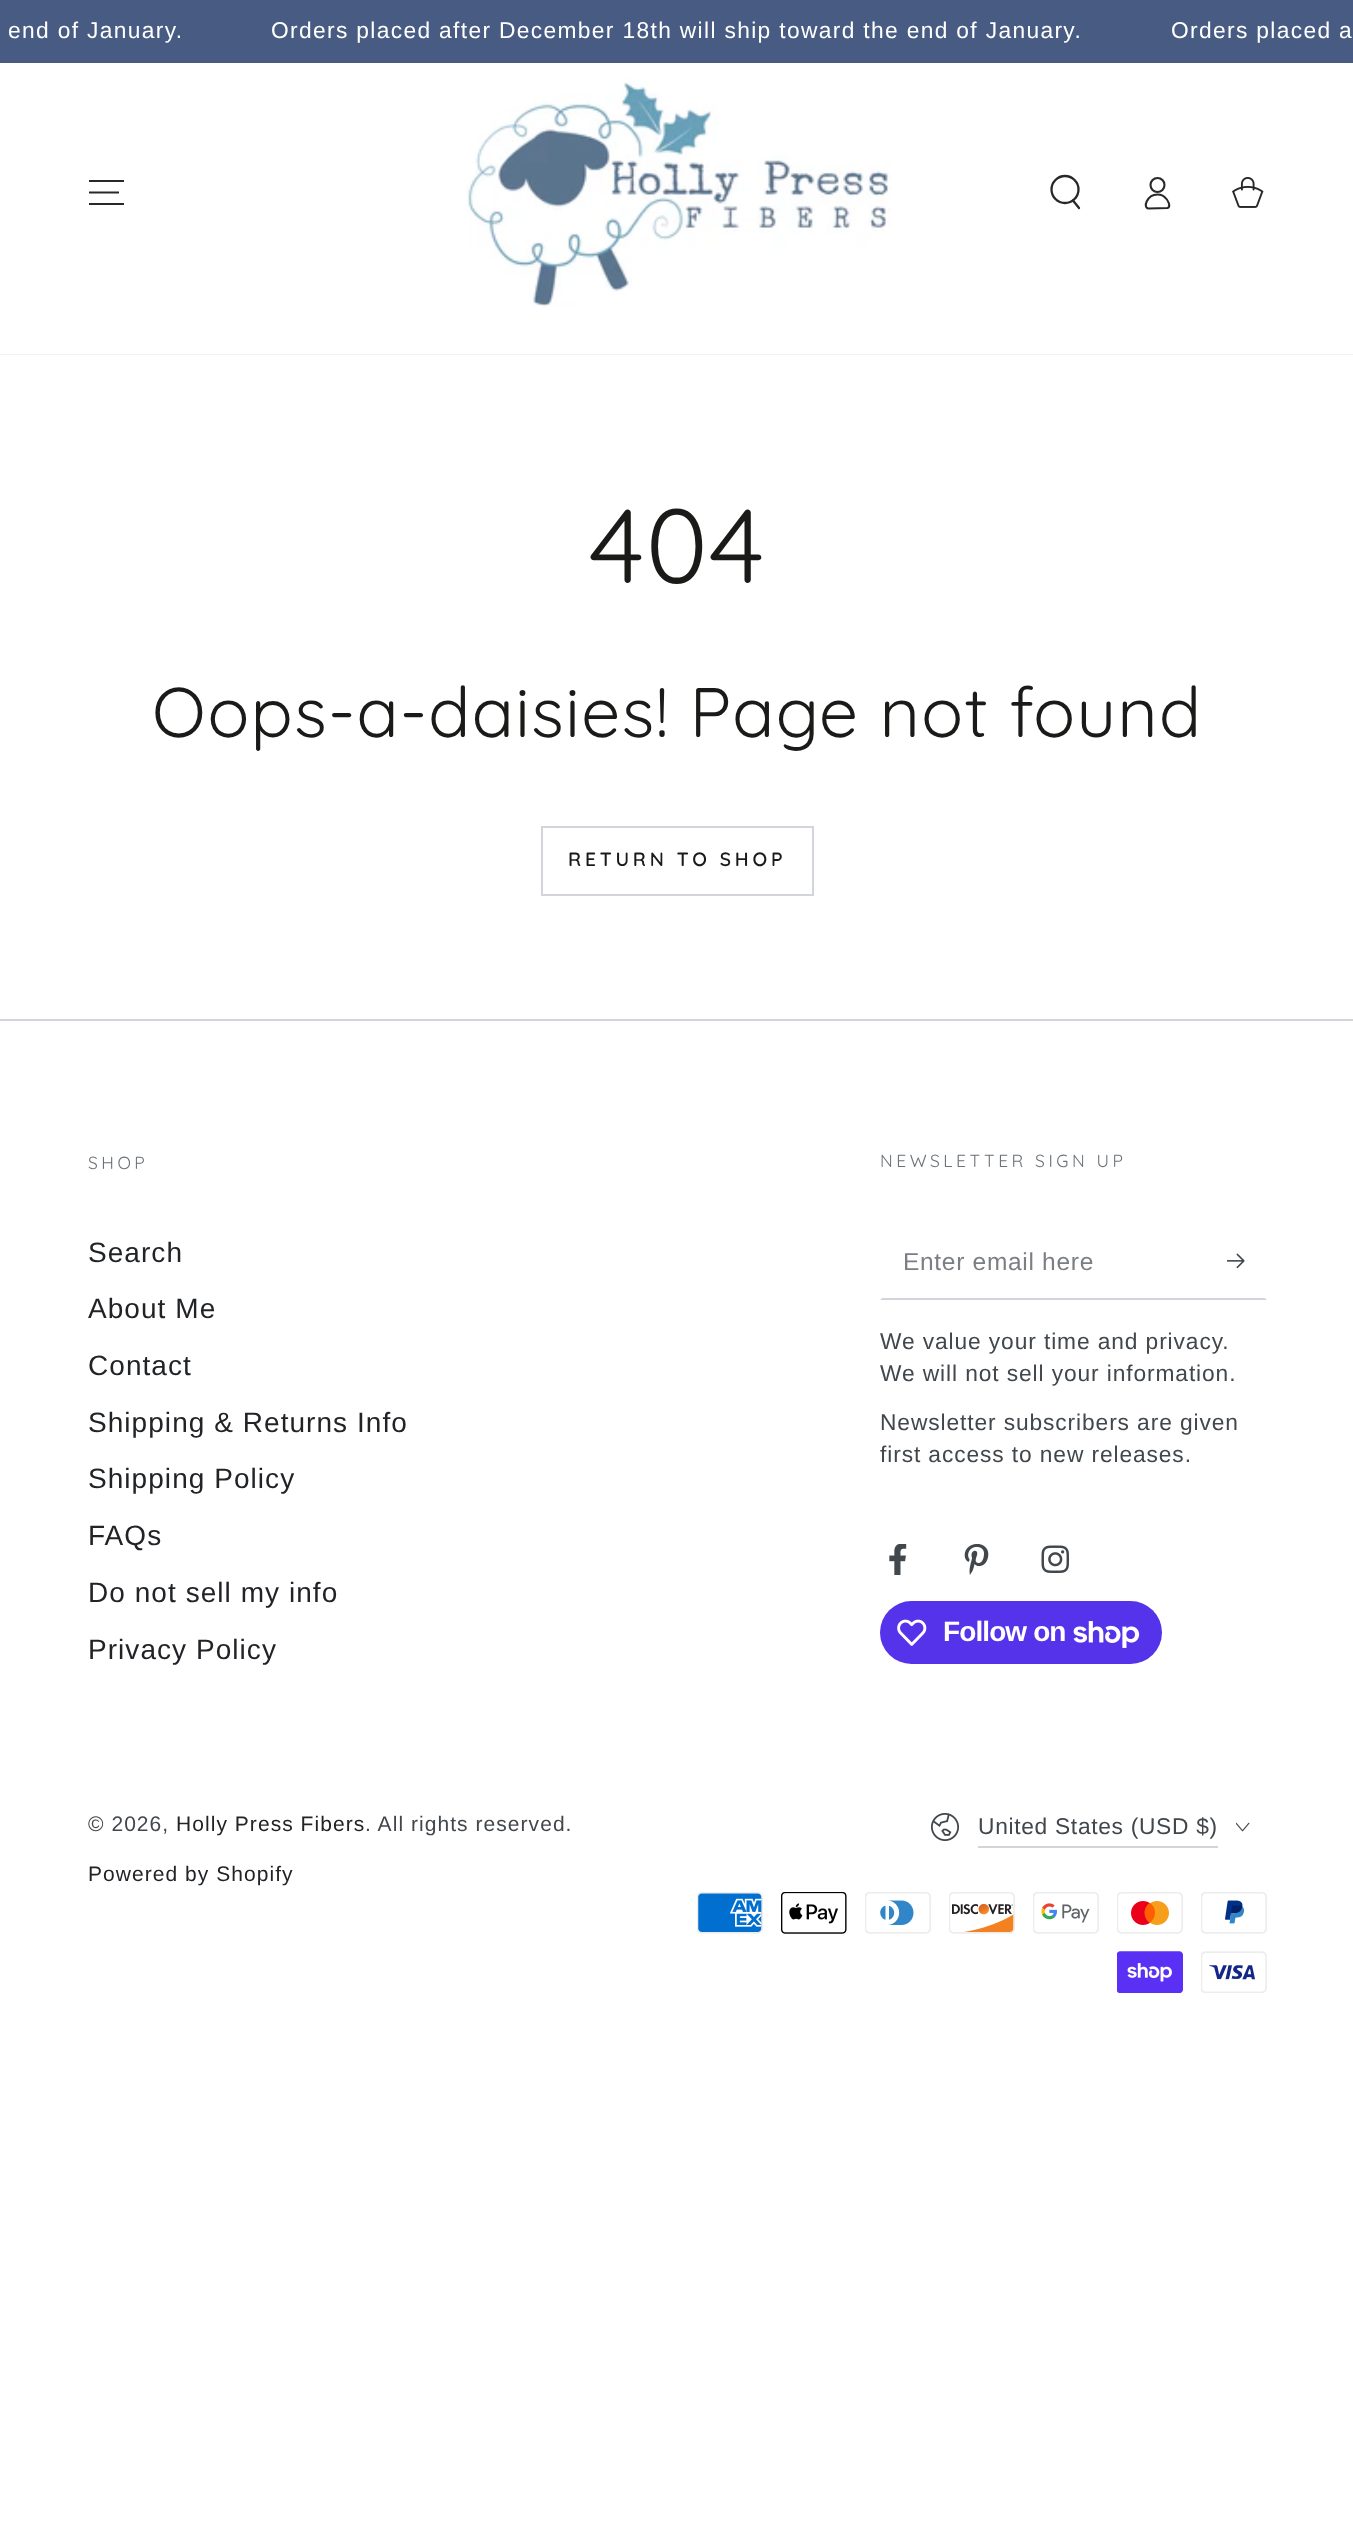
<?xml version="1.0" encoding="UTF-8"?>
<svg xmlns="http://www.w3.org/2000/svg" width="1353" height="2539">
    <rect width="100%" height="100%" fill="#FFFFFF"/>
    <rect x="0" y="0" width="1353" height="63" fill="#485C83"/>
    <text x="8" y="38" font-family="Liberation Sans" font-size="22.75" letter-spacing="1.35" fill="#FFFFFF">end of January.</text>
    <text x="271" y="38" font-family="Liberation Sans" font-size="22.75" letter-spacing="1.35" fill="#FFFFFF">Orders placed after December 18th will ship toward the end of January.</text>
    <text x="1171" y="38" font-family="Liberation Sans" font-size="22.75" letter-spacing="1.35" fill="#FFFFFF">Orders placed a</text>
    <path d="M 0 354 V 355 H 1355 V 65 H 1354 V 354 Z" fill="#F2F2F4"/>
    <path d="M 89 204 H 124 M 89 192.5 H 119 M 89 181 H 124" fill="none" stroke="#282828" stroke-width="2"/>
    <image x="466" y="79" width="425" height="228" href="img_01.png"/>
    <circle cx="1065" cy="189.5" r="13.5" fill="none" stroke="#282828" stroke-width="2.3"/>
    <path d="M 1073 200.5 L 1079 208" fill="none" stroke="#282828" stroke-width="2.3" stroke-linecap="round"/>
    <path d="M 1157.5 194.5 C 1147 194.5 1142.5 208 1148.5 208.5 L 1167.5 208 C 1171.5 206.5 1167.5 199.5 1165.5 198 C 1163.5 195.5 1160.5 194.5 1157.5 194.5 Z" fill="none" stroke="#282828" stroke-width="2.1"/>
    <circle cx="1157.5" cy="185" r="7" fill="none" stroke="#282828" stroke-width="2.1"/>
    <image x="1232" y="177" width="32" height="31" href="img_02.png"/>
    <text x="589" y="583" font-family="Quicksand" font-size="105" letter-spacing="1.05" fill="#1A1B18">404</text>
    <text x="152" y="737" font-family="Quicksand" font-size="70" letter-spacing="1.05" fill="#1A1B18">Oops-a-daisies! Page not found</text>
    <rect x="542" y="827" width="271" height="68" fill="none" stroke="#D2D5D9" stroke-width="2"/>
    <text x="568" y="866" font-family="Quicksand" font-size="19.25" font-weight="600" letter-spacing="3.8" fill="#1A1B18">RETURN TO SHOP</text>
    <rect x="0" y="1019" width="1353" height="2" fill="#D2D5D9"/>
    <text x="88" y="1169" font-family="Quicksand" font-size="17.5" letter-spacing="3.5" fill="#6B7177">SHOP</text>
    <text x="88" y="1262" font-family="Liberation Sans" font-size="28" letter-spacing="1.05" fill="#212326">Search</text>
    <text x="88" y="1318" font-family="Liberation Sans" font-size="28" letter-spacing="1.05" fill="#212326">About Me</text>
    <text x="88" y="1375" font-family="Liberation Sans" font-size="28" letter-spacing="1.05" fill="#212326">Contact</text>
    <text x="88" y="1432" font-family="Liberation Sans" font-size="28" letter-spacing="1.05" fill="#212326">Shipping &amp; Returns Info</text>
    <text x="88" y="1488" font-family="Liberation Sans" font-size="28" letter-spacing="1.05" fill="#212326">Shipping Policy</text>
    <text x="88" y="1545" font-family="Liberation Sans" font-size="28" letter-spacing="1.05" fill="#212326">FAQs</text>
    <text x="88" y="1602" font-family="Liberation Sans" font-size="28" letter-spacing="1.05" fill="#212326">Do not sell my info</text>
    <text x="88" y="1659" font-family="Liberation Sans" font-size="28" letter-spacing="1.05" fill="#212326">Privacy Policy</text>
    <text x="880" y="1167" font-family="Quicksand" font-size="17.5" letter-spacing="3.5" fill="#6B7177">NEWSLETTER SIGN UP</text>
    <path d="M 1267 1300 H 880 L 882 1298 H 1265 Z" fill="#D2D5D9"/>
    <text x="903" y="1270" font-family="Liberation Sans" font-size="24.5" letter-spacing="0.7" fill="#7B7E82">Enter email here</text>
    <image x="1227" y="1253" width="18" height="16" href="img_03.png"/>
    <text font-family="Liberation Sans" font-size="22.75" letter-spacing="0.9" fill="#42474C">
        <tspan x="880" y="1349">We value your time and privacy.</tspan>
        <tspan x="880" y="1381">We will not sell your information.</tspan>
    </text>
    <text font-family="Liberation Sans" font-size="22.75" letter-spacing="0.9" fill="#42474C">
        <tspan x="880" y="1430">Newsletter subscribers are given</tspan>
        <tspan x="880" y="1462">first access to new releases.</tspan>
    </text>
    <image x="889" y="1544" width="18" height="31" href="img_04.png"/>
    <image x="964" y="1544" width="25" height="31" href="img_05.png"/>
    <image x="1041" y="1545" width="29" height="28" href="img_06.png"/>
    <rect x="880" y="1601" width="282" height="63" rx="31.5" fill="#5433EB"/>
    <image x="897" y="1619" width="30" height="27" href="img_07.png"/>
    <text x="943" y="1641" font-family="Liberation Sans" font-size="28" font-weight="700" letter-spacing="-0.9" fill="#FFFFFF">Follow on</text>
    <image x="1073" y="1621" width="67" height="27" href="img_08.png"/>
    <text x="88" y="1831" font-family="Liberation Sans" font-size="21" letter-spacing="1.05" fill="#42474C">© 2026,</text>
    <text x="176" y="1831" font-family="Liberation Sans" font-size="21" letter-spacing="1.05" fill="#212326">Holly Press Fibers</text>
    <text x="365" y="1831" font-family="Liberation Sans" font-size="21" letter-spacing="1.05" fill="#42474C">. All rights reserved.</text>
    <text x="88" y="1881" font-family="Liberation Sans" font-size="21" letter-spacing="1.05" fill="#212326">Powered by Shopify</text>
    <image x="931" y="1813" width="28" height="28" href="img_09.png"/>
    <rect x="978" y="1846" width="240" height="2" fill="#D2D5D9"/>
    <text x="978" y="1834" font-family="Liberation Sans" font-size="22.75" letter-spacing="0.7" fill="#42474C">United States (USD $)</text>
    <image x="1236" y="1822" width="14" height="10" href="img_10.png"/>
    <image x="697" y="1892" width="66" height="42" href="img_11.png"/>
    <image x="781" y="1892" width="66" height="42" href="img_12.png"/>
    <image x="865" y="1892" width="66" height="42" href="img_13.png"/>
    <image x="949" y="1892" width="66" height="42" href="img_14.png"/>
    <image x="1033" y="1892" width="66" height="42" href="img_15.png"/>
    <image x="1117" y="1892" width="66" height="42" href="img_16.png"/>
    <image x="1201" y="1892" width="66" height="42" href="img_17.png"/>
    <image x="1117" y="1951" width="66" height="42" href="img_18.png"/>
    <image x="1201" y="1951" width="66" height="42" href="img_19.png"/>
</svg>
